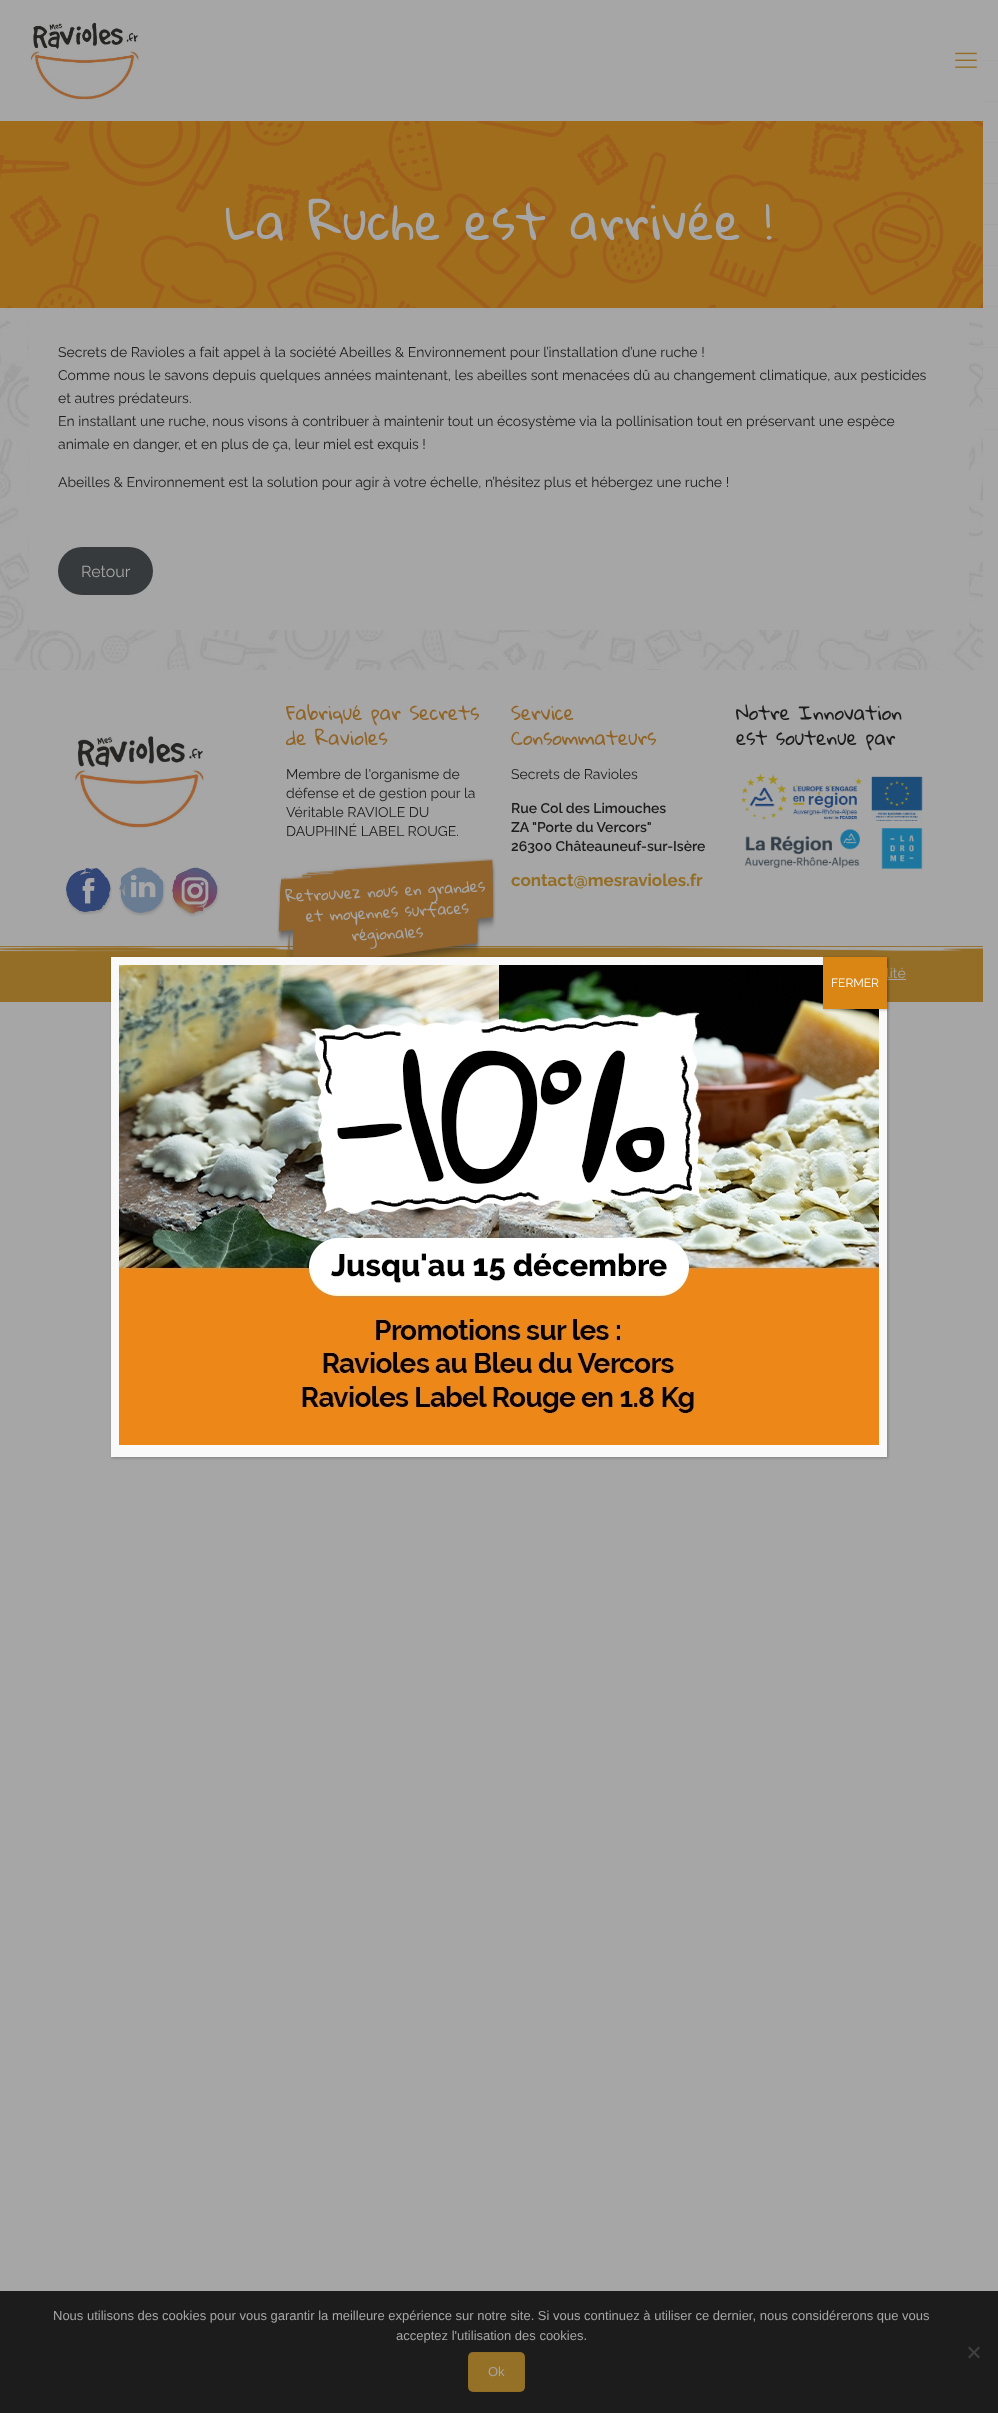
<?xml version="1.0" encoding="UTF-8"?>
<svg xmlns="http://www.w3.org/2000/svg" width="998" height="2413">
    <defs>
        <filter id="blur1" x="-50%" y="-200%" width="200%" height="500%"><feGaussianBlur stdDeviation="1.5"/></filter>
    </defs>
    <rect width="100%" height="100%" fill="#A6A6A6"/>
    <image x="0" y="121" width="983" height="187" href="img_01.png"/>
    <image x="29" y="22" width="110" height="79" href="img_02.png"/>
    <image x="955" y="52" width="22" height="16" href="img_03.png"/>
    <text x="226" y="240" font-family="Gloria Hallelujah" font-size="48" letter-spacing="1" fill="#A6A6A6">La Ruche est arrivée !</text>
    <image x="0" y="321" width="983" height="349" href="img_04.png"/>
    <rect x="29" y="321" width="940" height="309" fill="#A6A6A6"/>
    <text font-family="Raleway" font-size="14" fill="#1C1C1C">
        <tspan x="58" y="357">Secrets de Ravioles a fait appel à la société Abeilles &amp; Environnement pour l’installation d’une ruche !</tspan>
        <tspan x="58" y="380">Comme nous le savons depuis quelques années maintenant, les abeilles sont menacées dû au changement climatique, aux pesticides</tspan>
        <tspan x="58" y="403">et autres prédateurs.</tspan>
        <tspan x="58" y="426">En installant une ruche, nous visons à contribuer à maintenir tout un écosystème via la pollinisation tout en préservant une espèce</tspan>
        <tspan x="58" y="449">animale en danger, et en plus de ça, leur miel est exquis !</tspan>
    </text>
    <text x="58" y="487" font-family="Raleway" font-size="14" fill="#1C1C1C">Abeilles &amp; Environnement est la solution pour agir à votre échelle, n’hésitez plus et hébergez une ruche !</text>
    <rect x="58" y="547" width="95" height="48" rx="24" fill="#373A3C"/>
    <text x="81" y="577" font-family="Raleway" font-size="16" fill="#A6A6A6">Retour</text>
    <image x="75" y="736" width="129" height="92" href="img_05.png"/>
    <image x="65" y="867" width="47" height="48" href="img_06.png"/>
    <image x="119" y="867" width="46" height="49" href="img_07.png"/>
    <image x="171" y="867" width="49" height="50" href="img_08.png"/>
    <text font-family="Gloria Hallelujah" font-size="19" fill="#916427">
        <tspan x="286" y="720">Fabriqué par Secrets</tspan>
        <tspan x="286" y="745">de Ravioles</tspan>
    </text>
    <text font-family="Raleway" font-size="14" fill="#1C1C1C">
        <tspan x="286" y="779">Membre de l'organisme de</tspan>
        <tspan x="286" y="798">défense et de gestion pour la</tspan>
        <tspan x="286" y="817">Véritable RAVIOLE DU</tspan>
        <tspan x="286" y="836">DAUPHINÉ LABEL ROUGE.</tspan>
    </text>
    <image x="0" y="947" width="983" height="55" href="img_11.png"/>
    <rect x="0" y="946" width="983" height="1" fill="#967334"/>
    <image x="277" y="858" width="219" height="99" href="img_09.png"/>
    <text x="286" y="902" transform="rotate(-3 286 902)" font-family="Gloria Hallelujah" font-size="15" fill="#A6A6A6">Retrouvez nous en grandes</text>
    <text x="306" y="922" transform="rotate(-3 306 922)" font-family="Gloria Hallelujah" font-size="15" fill="#A6A6A6">et moyennes surfaces</text>
    <text x="352" y="941" transform="rotate(-3 352 941)" font-family="Gloria Hallelujah" font-size="15" fill="#A6A6A6">régionales</text>
    <text font-family="Gloria Hallelujah" font-size="19" fill="#916427">
        <tspan x="511" y="720">Service</tspan>
        <tspan x="511" y="745">Consommateurs</tspan>
    </text>
    <text x="511" y="779" font-family="Raleway" font-size="14" fill="#1C1C1C">Secrets de Ravioles</text>
    <text font-family="Raleway" font-size="14" font-weight="600" fill="#1C1C1C">
        <tspan x="511" y="813">Rue Col des Limouches</tspan>
        <tspan x="511" y="832">ZA "Porte du Vercors"</tspan>
        <tspan x="511" y="851">26300 Châteauneuf-sur-Isère</tspan>
    </text>
    <text x="511" y="886" font-family="Raleway" font-size="17" font-weight="700" fill="#946E27">contact@mesravioles.fr</text>
    <text font-family="Gloria Hallelujah" font-size="19" fill="#1C1C1C">
        <tspan x="736" y="720">Notre Innovation</tspan>
        <tspan x="736" y="745">est soutenue par</tspan>
    </text>
    <image x="741" y="773" width="182" height="97" href="img_10.png"/>
    <text x="886" y="978" font-family="Raleway" font-size="14" fill="#A6A6A6">lité</text>
    <rect x="887" y="979" width="19" height="1" fill="#A6A6A6"/>
    <rect x="983" y="60" width="15" height="1" fill="#A1A1A1"/>
    <rect x="983" y="101" width="15" height="1" fill="#A1A1A1"/>
    <rect x="983" y="142" width="15" height="1" fill="#A1A1A1"/>
    <rect x="983" y="183" width="15" height="1" fill="#A1A1A1"/>
    <rect x="983" y="224" width="15" height="1" fill="#A1A1A1"/>
    <rect x="983" y="265" width="15" height="1" fill="#A1A1A1"/>
    <rect x="983" y="306" width="15" height="1" fill="#A1A1A1"/>
    <rect x="983" y="347" width="15" height="1" fill="#A1A1A1"/>
    <rect x="983" y="388" width="15" height="1" fill="#A1A1A1"/>
    <rect x="983" y="429" width="15" height="1" fill="#A1A1A1"/>
    <rect x="112" y="958" width="776" height="500" fill="#020202" fill-opacity="0.23" filter="url(#blur1)"/>
    <rect x="111" y="957" width="776" height="500" fill="#F9F9F9"/>
    <image x="119" y="965" width="760" height="480" href="img_12.png"/>
    <rect x="824" y="958" width="64" height="52" fill="#020202" fill-opacity="0.23" filter="url(#blur1)"/>
    <rect x="823" y="957" width="64" height="52" fill="#D98615"/>
    <text x="831" y="987" font-family="Raleway" font-size="12" fill="#FFFFFF">FERMER</text>
    <rect x="0" y="2291" width="998" height="122" fill="#1C1C1C"/>
    <text x="53" y="2320" font-family="Liberation Sans" font-size="13" fill="#A6A6A6">Nous utilisons des cookies pour vous garantir la meilleure expérience sur notre site. Si vous continuez à utiliser ce dernier, nous considérerons que vous</text>
    <text x="396" y="2340" font-family="Liberation Sans" font-size="13" fill="#A6A6A6">acceptez l'utilisation des cookies.</text>
    <path d="M 978.5 2346.5 L 980 2348 L 969.5 2358.5 L 968 2357 Z" fill="#3F3F3F"/>
    <path d="M 968 2348 L 969.5 2346.5 L 980 2357 L 978.5 2358.5 Z" fill="#3F3F3F"/>
    <rect x="468" y="2352" width="57" height="40" rx="5" fill="#957027"/>
    <rect x="468.5" y="2352.5" width="56" height="39" fill="none" stroke="#1C1C1C" stroke-opacity="0.03"/>
    <text x="488" y="2376" font-family="Liberation Sans" font-size="13" fill="#A6A6A6">Ok</text>
</svg>
